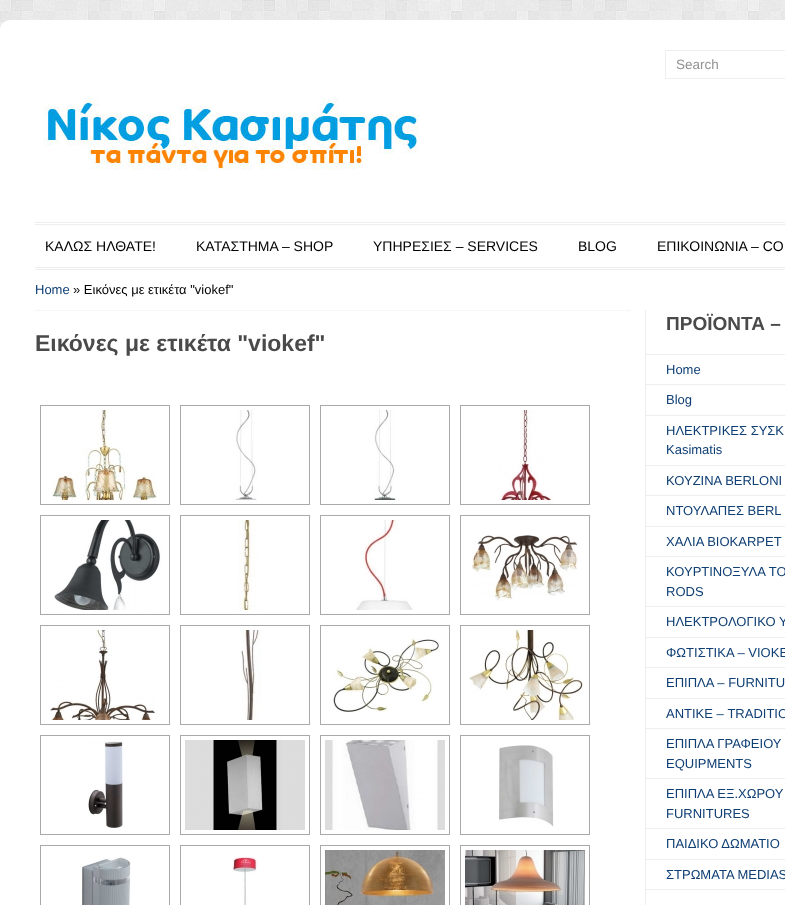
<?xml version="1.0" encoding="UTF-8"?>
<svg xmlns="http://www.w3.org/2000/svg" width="785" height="905">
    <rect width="100%" height="100%" fill="#FFFFFF"/>
    <image x="0" y="0" width="785" height="30" href="img_01.png"/>
    <path d="M 10 20 H 785 C 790.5 20 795 24.5 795 30 V 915 H 0 V 30 C 0 24.5 4.5 20 10 20 Z" fill="#FFFFFF"/>
    <rect x="665.5" y="50.5" width="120" height="28" fill="none" stroke="#EEEEEE"/>
    <text x="676" y="69" font-family="Liberation Sans" font-size="13.5" fill="#939292">Search</text>
    <image x="43" y="98" width="376" height="72" href="img_02.png"/>
    <rect x="35" y="222" width="750" height="1" fill="#EEEEEE"/>
    <rect x="35" y="224" width="750" height="1" fill="#EEEEEE"/>
    <rect x="35" y="267" width="750" height="1" fill="#EEEEEE"/>
    <rect x="35" y="269" width="750" height="1" fill="#EEEEEE"/>
    <text x="45" y="251" font-family="Liberation Sans" font-size="14" fill="#000000">ΚΑΛΩΣ ΗΛΘΑΤΕ!</text>
    <text x="196" y="251" font-family="Liberation Sans" font-size="14" fill="#000000">ΚΑΤΑΣΤΗΜΑ – SHOP</text>
    <text x="373" y="251" font-family="Liberation Sans" font-size="14" fill="#000000">ΥΠΗΡΕΣΙΕΣ – SERVICES</text>
    <text x="578" y="251" font-family="Liberation Sans" font-size="14" fill="#000000">BLOG</text>
    <text x="657" y="251" font-family="Liberation Sans" font-size="14" fill="#000000">ΕΠΙΚΟΙΝΩΝΙΑ – CO</text>
    <path d="M 35 310.5 H 630" fill="none" stroke="#EEEEEE" stroke-dasharray="1 1"/>
    <text x="35" y="294" font-family="Liberation Sans" font-size="13" fill="#0F3F74">Home</text>
    <text x="73" y="294" font-family="Liberation Sans" font-size="13" fill="#000000">» Εικόνες με ετικέτα "viokef"</text>
    <text x="35" y="351" font-family="Liberation Sans" font-size="23" font-weight="700" fill="#4A4A4A">Εικόνες με ετικέτα "viokef"</text>
    <rect x="40.5" y="405.5" width="129" height="99" fill="none" stroke="#A9A9A9"/>
    <image x="51" y="410" width="106" height="90" href="img_03.png"/>
    <rect x="180.5" y="405.5" width="129" height="99" fill="none" stroke="#A9A9A9"/>
    <image x="235" y="410" width="22" height="90" href="img_04.png"/>
    <rect x="320.5" y="405.5" width="129" height="99" fill="none" stroke="#A9A9A9"/>
    <image x="373" y="410" width="24" height="90" href="img_05.png"/>
    <rect x="460.5" y="405.5" width="129" height="99" fill="none" stroke="#A9A9A9"/>
    <image x="498" y="410" width="56" height="90" href="img_06.png"/>
    <rect x="40.5" y="515.5" width="129" height="99" fill="none" stroke="#A9A9A9"/>
    <image x="54" y="520" width="107" height="90" href="img_07.png"/>
    <rect x="180.5" y="515.5" width="129" height="99" fill="none" stroke="#A9A9A9"/>
    <image x="238" y="520" width="19" height="90" href="img_08.png"/>
    <rect x="320.5" y="515.5" width="129" height="99" fill="none" stroke="#A9A9A9"/>
    <image x="356" y="520" width="57" height="90" href="img_09.png"/>
    <rect x="460.5" y="515.5" width="129" height="99" fill="none" stroke="#A9A9A9"/>
    <image x="472" y="535" width="106" height="66" href="img_10.png"/>
    <rect x="40.5" y="625.5" width="129" height="99" fill="none" stroke="#A9A9A9"/>
    <image x="50" y="630" width="106" height="90" href="img_11.png"/>
    <rect x="180.5" y="625.5" width="129" height="99" fill="none" stroke="#A9A9A9"/>
    <image x="241" y="630" width="20" height="90" href="img_12.png"/>
    <rect x="320.5" y="625.5" width="129" height="99" fill="none" stroke="#A9A9A9"/>
    <image x="333" y="638" width="107" height="75" href="img_13.png"/>
    <rect x="460.5" y="625.5" width="129" height="99" fill="none" stroke="#A9A9A9"/>
    <image x="469" y="630" width="115" height="90" href="img_14.png"/>
    <rect x="40.5" y="735.5" width="129" height="99" fill="none" stroke="#A9A9A9"/>
    <image x="88" y="741" width="35" height="87" href="img_15.png"/>
    <rect x="180.5" y="735.5" width="129" height="99" fill="none" stroke="#A9A9A9"/>
    <image x="185" y="740" width="120" height="90" href="img_16.png"/>
    <rect x="320.5" y="735.5" width="129" height="99" fill="none" stroke="#A9A9A9"/>
    <image x="325" y="740" width="120" height="90" href="img_17.png"/>
    <rect x="460.5" y="735.5" width="129" height="99" fill="none" stroke="#A9A9A9"/>
    <image x="499" y="745" width="55" height="82" href="img_18.png"/>
    <rect x="40.5" y="845.5" width="129" height="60" fill="none" stroke="#A9A9A9"/>
    <image x="82" y="857" width="49" height="48" href="img_19.png"/>
    <rect x="180.5" y="845.5" width="129" height="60" fill="none" stroke="#A9A9A9"/>
    <image x="232" y="857" width="26" height="48" href="img_20.png"/>
    <rect x="320.5" y="845.5" width="129" height="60" fill="none" stroke="#A9A9A9"/>
    <image x="325" y="850" width="120" height="55" href="img_21.png"/>
    <rect x="460.5" y="845.5" width="129" height="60" fill="none" stroke="#A9A9A9"/>
    <image x="465" y="850" width="120" height="55" href="img_22.png"/>
    <rect x="645" y="310" width="1" height="595" fill="#EEEEEE"/>
    <text x="666" y="330" font-family="Liberation Sans" font-size="19" font-weight="700" fill="#4A4A4A">ΠΡΟΪΟΝΤΑ –</text>
    <rect x="646" y="354" width="139" height="1" fill="#EEEEEE"/>
    <rect x="646" y="384" width="139" height="1" fill="#EEEEEE"/>
    <text x="666" y="374" font-family="Liberation Sans" font-size="13" fill="#0F3F74">Home</text>
    <rect x="646" y="415" width="139" height="1" fill="#EEEEEE"/>
    <text x="666" y="404" font-family="Liberation Sans" font-size="13" fill="#0F3F74">Blog</text>
    <rect x="646" y="465" width="139" height="1" fill="#EEEEEE"/>
    <text font-family="Liberation Sans" font-size="13" fill="#0F3F74">
        <tspan x="666" y="435">ΗΛΕΚΤΡΙΚΕΣ ΣΥΣΚ</tspan>
        <tspan x="666" y="454">Kasimatis</tspan>
    </text>
    <rect x="646" y="495" width="139" height="1" fill="#EEEEEE"/>
    <text x="666" y="485" font-family="Liberation Sans" font-size="13" fill="#0F3F74">ΚΟΥΖΙΝΑ BERLONI</text>
    <rect x="646" y="526" width="139" height="1" fill="#EEEEEE"/>
    <text x="666" y="515" font-family="Liberation Sans" font-size="13" fill="#0F3F74">ΝΤΟΥΛΑΠΕΣ BERL</text>
    <rect x="646" y="556" width="139" height="1" fill="#EEEEEE"/>
    <text x="666" y="546" font-family="Liberation Sans" font-size="13" fill="#0F3F74">ΧΑΛΙΑ BIOKARPET</text>
    <rect x="646" y="606" width="139" height="1" fill="#EEEEEE"/>
    <text font-family="Liberation Sans" font-size="13" fill="#0F3F74">
        <tspan x="666" y="576">ΚΟΥΡΤΙΝΟΞΥΛΑ TO</tspan>
        <tspan x="666" y="596">RODS</tspan>
    </text>
    <rect x="646" y="637" width="139" height="1" fill="#EEEEEE"/>
    <text x="666" y="626" font-family="Liberation Sans" font-size="13" fill="#0F3F74">ΗΛΕΚΤΡΟΛΟΓΙΚΟ Υ</text>
    <rect x="646" y="667" width="139" height="1" fill="#EEEEEE"/>
    <text x="666" y="657" font-family="Liberation Sans" font-size="13" fill="#0F3F74">ΦΩΤΙΣΤΙΚΑ – VIOKE</text>
    <rect x="646" y="698" width="139" height="1" fill="#EEEEEE"/>
    <text x="666" y="687" font-family="Liberation Sans" font-size="13" fill="#0F3F74">ΕΠΙΠΛΑ – FURNITU</text>
    <rect x="646" y="728" width="139" height="1" fill="#EEEEEE"/>
    <text x="666" y="718" font-family="Liberation Sans" font-size="13" fill="#0F3F74">ΑΝΤΙΚΕ – TRADITIO</text>
    <rect x="646" y="778" width="139" height="1" fill="#EEEEEE"/>
    <text font-family="Liberation Sans" font-size="13" fill="#0F3F74">
        <tspan x="666" y="748">ΕΠΙΠΛΑ ΓΡΑΦΕΙΟΥ</tspan>
        <tspan x="666" y="768">EQUIPMENTS</tspan>
    </text>
    <rect x="646" y="828" width="139" height="1" fill="#EEEEEE"/>
    <text font-family="Liberation Sans" font-size="13" fill="#0F3F74">
        <tspan x="666" y="798">ΕΠΙΠΛΑ ΕΞ.ΧΩΡΟΥ</tspan>
        <tspan x="666" y="818">FURNITURES</tspan>
    </text>
    <rect x="646" y="859" width="139" height="1" fill="#EEEEEE"/>
    <text x="666" y="848" font-family="Liberation Sans" font-size="13" fill="#0F3F74">ΠΑΙΔΙΚΟ ΔΩΜΑΤΙΟ</text>
    <rect x="646" y="889" width="139" height="1" fill="#EEEEEE"/>
    <text x="666" y="879" font-family="Liberation Sans" font-size="13" fill="#0F3F74">ΣΤΡΩΜΑΤΑ MEDIAS</text>
</svg>
